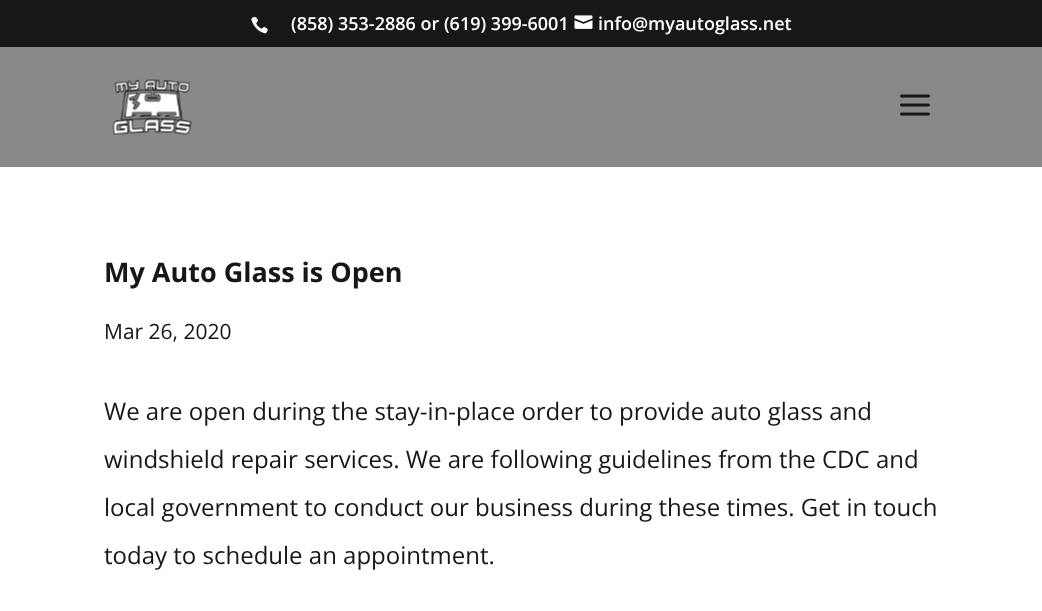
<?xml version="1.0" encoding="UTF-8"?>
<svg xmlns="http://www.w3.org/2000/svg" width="1042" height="611">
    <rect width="100%" height="100%" fill="#FFFFFF"/>
    <rect x="0" y="0" width="1042" height="47" fill="#171717"/>
    <image x="251" y="16" width="17" height="18" href="img_01.png"/>
    <text x="291" y="30" font-family="Open Sans" font-size="18" font-weight="600" fill="#FFFFFF">(858) 353-2886 or (619) 399-6001</text>
    <image x="574" y="15" width="19" height="14" href="img_02.png"/>
    <text x="598" y="30" font-family="Open Sans" font-size="18" font-weight="600" fill="#FFFFFF">info@myautoglass.net</text>
    <rect x="0" y="47" width="1042" height="120" fill="#898989"/>
    <image x="112" y="79" width="80" height="57" href="img_03.png"/>
    <image x="900" y="94" width="30" height="22" href="img_04.png"/>
    <text x="104" y="282" font-family="Open Sans" font-size="27" font-weight="700" fill="#171717">My Auto Glass is Open</text>
    <text x="104" y="339" font-family="Open Sans" font-size="21" fill="#171717">Mar 26, 2020</text>
    <text x="104" y="420" font-family="Open Sans" font-size="24" fill="#171717">We are open during the stay-in-place order to provide auto glass and</text>
    <text x="104" y="468" font-family="Open Sans" font-size="24" fill="#171717">windshield repair services. We are following guidelines from the CDC and</text>
    <text x="104" y="516" font-family="Open Sans" font-size="24" fill="#171717">local government to conduct our business during these times. Get in touch</text>
    <text x="104" y="564" font-family="Open Sans" font-size="24" fill="#171717">today to schedule an appointment.</text>
</svg>
